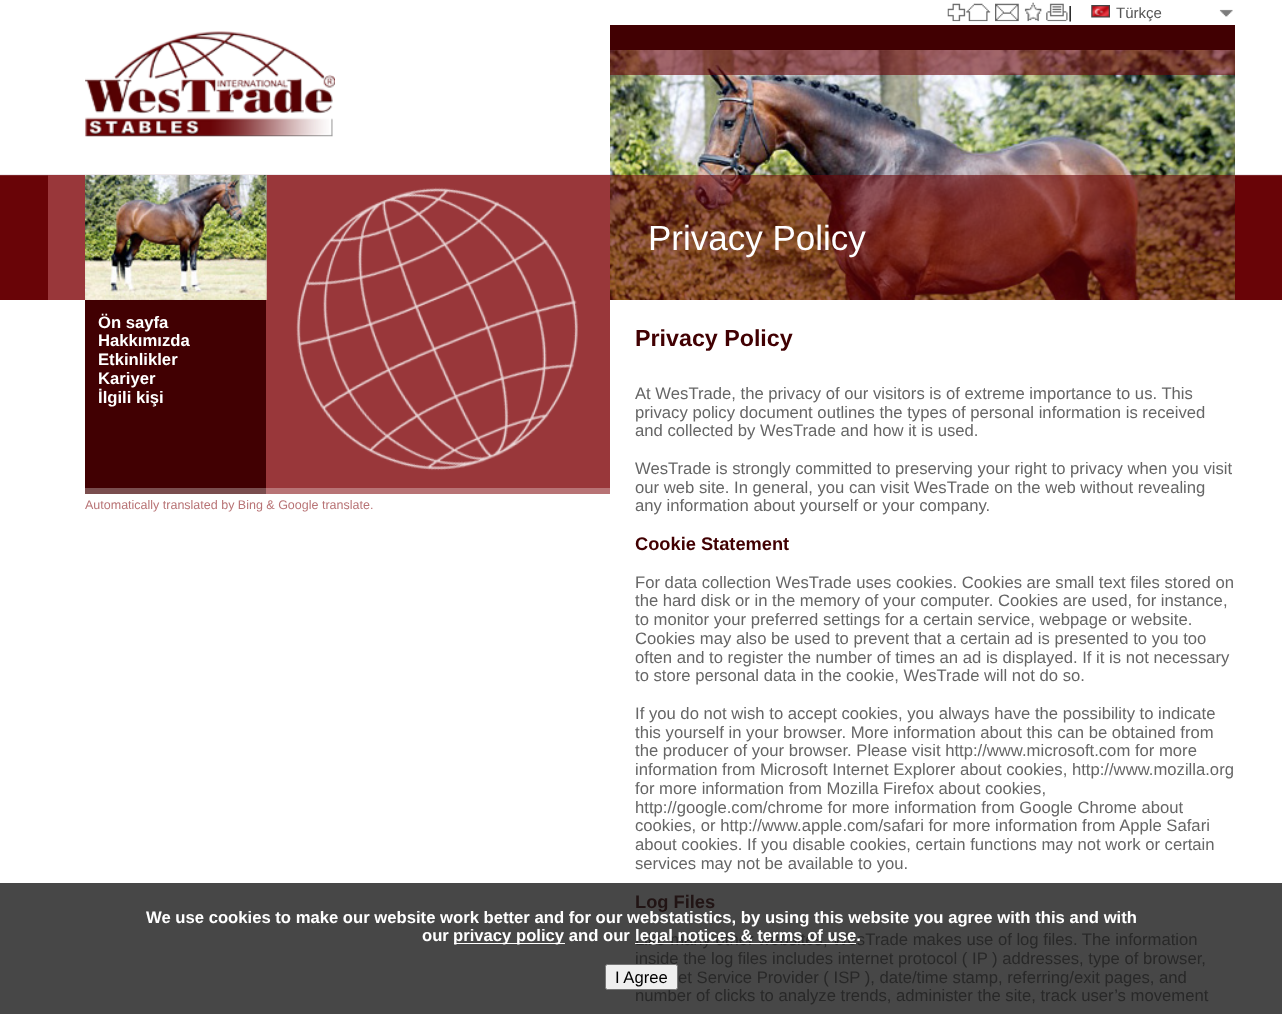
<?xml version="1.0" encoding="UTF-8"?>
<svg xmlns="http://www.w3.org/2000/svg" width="1282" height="1014">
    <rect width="100%" height="100%" fill="#FFFFFF"/>
    <rect x="0" y="883" width="1282" height="131" fill="#474747"/>
    <image x="0" y="174" width="1282" height="126" href="img_01.png"/>
    <image x="85" y="31" width="250" height="106" href="img_02.png"/>
    <rect x="48" y="175" width="37" height="125" fill="#99373A"/>
    <rect x="266" y="175" width="344" height="313" fill="#99373A"/>
    <image x="266" y="175" width="1" height="125" href="img_04.png"/>
    <image x="266" y="175" width="1" height="125" href="img_05.png"/>
    <image x="266" y="175" width="1" height="125" href="img_06.png"/>
    <image x="266" y="175" width="1" height="125" href="img_07.png"/>
    <image x="266" y="175" width="1" height="125" href="img_08.png"/>
    <image x="85" y="175" width="182" height="125" href="img_03.png"/>
    <rect x="85" y="300" width="181" height="188" fill="#410002"/>
    <rect x="85" y="488" width="181" height="6" fill="#7A4D4E"/>
    <text font-family="Liberation Sans" font-size="16.67" font-weight="700" fill="#FFFFFF">
        <tspan x="98" y="328">Ön sayfa</tspan>
        <tspan x="98" y="346">Hakkımızda</tspan>
        <tspan x="98" y="365">Etkinlikler</tspan>
        <tspan x="98" y="384">Kariyer</tspan>
        <tspan x="98" y="403">İlgili kişi</tspan>
    </text>
    <rect x="266" y="488" width="344" height="6" fill="#B87375"/>
    <image x="296" y="187" width="283" height="284" href="img_09.png"/>
    <text x="85" y="509" font-family="Liberation Sans" font-size="12.5" fill="#B87375">Automatically translated by Bing &amp; Google translate.</text>
    <image x="947" y="3" width="19" height="19" href="img_10.png"/>
    <image x="966" y="3" width="25" height="19" href="img_11.png"/>
    <image x="995" y="3" width="24" height="19" href="img_12.png"/>
    <image x="1024" y="2" width="18" height="20" href="img_13.png"/>
    <image x="1046" y="3" width="22" height="19" href="img_14.png"/>
    <text x="1068" y="18" font-family="Liberation Sans" font-size="16.67" fill="#000000">|</text>
    <image x="1091" y="5" width="19" height="13" href="img_15.png"/>
    <text x="1116" y="18" font-family="Liberation Sans" font-size="15" fill="#555555">Türkçe</text>
    <image x="1219" y="9" width="14" height="8" href="img_16.png"/>
    <image x="610" y="50" width="625" height="250" href="img_17.png"/>
    <rect x="610" y="25" width="625" height="25" fill="#410002"/>
    <rect x="610" y="50" width="625" height="25" fill="#690307" fill-opacity="0.6"/>
    <rect x="610" y="175" width="625" height="125" fill="#690307" fill-opacity="0.6"/>
    <text x="648" y="250" font-family="Liberation Sans" font-size="35" fill="#FFFFFF">Privacy Policy</text>
    <text x="635" y="346" font-family="Liberation Sans" font-size="23.25" font-weight="700" fill="#410002">Privacy Policy</text>
    <text font-family="Liberation Sans" font-size="16.67" fill="#666666">
        <tspan x="635" y="399">At WesTrade, the privacy of our visitors is of extreme importance to us. This</tspan>
        <tspan x="635" y="418">privacy policy document outlines the types of personal information is received</tspan>
        <tspan x="635" y="436">and collected by WesTrade and how it is used.</tspan>
    </text>
    <text font-family="Liberation Sans" font-size="16.67" fill="#666666">
        <tspan x="635" y="474">WesTrade is strongly committed to preserving your right to privacy when you visit</tspan>
        <tspan x="635" y="493">our web site. In general, you can visit WesTrade on the web without revealing</tspan>
        <tspan x="635" y="511">any information about yourself or your company.</tspan>
    </text>
    <text x="635" y="550" font-family="Liberation Sans" font-size="18.25" font-weight="700" fill="#410002">Cookie Statement</text>
    <text font-family="Liberation Sans" font-size="16.67" fill="#666666">
        <tspan x="635" y="588">For data collection WesTrade uses cookies. Cookies are small text files stored on</tspan>
        <tspan x="635" y="606">the hard disk or in the memory of your computer. Cookies are used, for instance,</tspan>
        <tspan x="635" y="625">to monitor your preferred settings for a certain service, webpage or website.</tspan>
        <tspan x="635" y="644">Cookies may also be used to prevent that a certain ad is presented to you too</tspan>
        <tspan x="635" y="663">often and to register the number of times an ad is displayed. If it is not necessary</tspan>
        <tspan x="635" y="681">to store personal data in the cookie, WesTrade will not do so.</tspan>
    </text>
    <text font-family="Liberation Sans" font-size="16.67" fill="#666666">
        <tspan x="635" y="719">If you do not wish to accept cookies, you always have the possibility to indicate</tspan>
        <tspan x="635" y="738">this yourself in your browser. More information about this can be obtained from</tspan>
        <tspan x="635" y="756">the producer of your browser. Please visit http://www.microsoft.com for more</tspan>
        <tspan x="635" y="775">information from Microsoft Internet Explorer about cookies, http://www.mozilla.org</tspan>
        <tspan x="635" y="794">for more information from Mozilla Firefox about cookies,</tspan>
        <tspan x="635" y="813">http://google.com/chrome for more information from Google Chrome about</tspan>
        <tspan x="635" y="831">cookies, or http://www.apple.com/safari for more information from Apple Safari</tspan>
        <tspan x="635" y="850">about cookies. If you disable cookies, certain functions may not work or certain</tspan>
        <tspan x="635" y="869">services may not be available to you.</tspan>
    </text>
    <text x="635" y="908" font-family="Liberation Sans" font-size="18.25" font-weight="700" fill="#211414">Log Files</text>
    <text font-family="Liberation Sans" font-size="16.67" fill="#282828">
        <tspan x="635" y="945">Like many other websites, WesTrade makes use of log files. The information</tspan>
        <tspan x="635" y="964">inside the log files includes internet protocol ( IP ) addresses, type of browser,</tspan>
    </text>
    <text x="678" y="983" font-family="Liberation Sans" font-size="16.67" fill="#282828">et Service Provider ( ISP ), date/time stamp, referring/exit pages, and</text>
    <text x="635" y="1001" font-family="Liberation Sans" font-size="16.67" fill="#282828">number of clicks to analyze trends, administer the site, track user’s movement</text>
    <text x="146" y="923" font-family="Liberation Sans" font-size="16.67" font-weight="700" fill="#FFFFFF">We use cookies to make our website work better and for our webstatistics, by using this website you agree with this and with</text>
    <text x="422" y="941" font-family="Liberation Sans" font-size="16.67" font-weight="700" fill="#FFFFFF">our</text>
    <rect x="454" y="943" width="111" height="1" fill="#FFFFFF"/>
    <text x="453" y="941" font-family="Liberation Sans" font-size="16.67" font-weight="700" fill="#FFFFFF">privacy policy and our</text>
    <rect x="635" y="943" width="221" height="1" fill="#FFFFFF"/>
    <text x="635" y="941" font-family="Liberation Sans" font-size="16.67" font-weight="700" fill="#FFFFFF">legal notices &amp; terms of use.</text>
    <rect x="605.5" y="964.5" width="72" height="25" rx="2" fill="#EFEFEF" stroke="#767676"/>
    <text x="615" y="983" font-family="Liberation Sans" font-size="16.67" fill="#000000">I Agree</text>
</svg>
